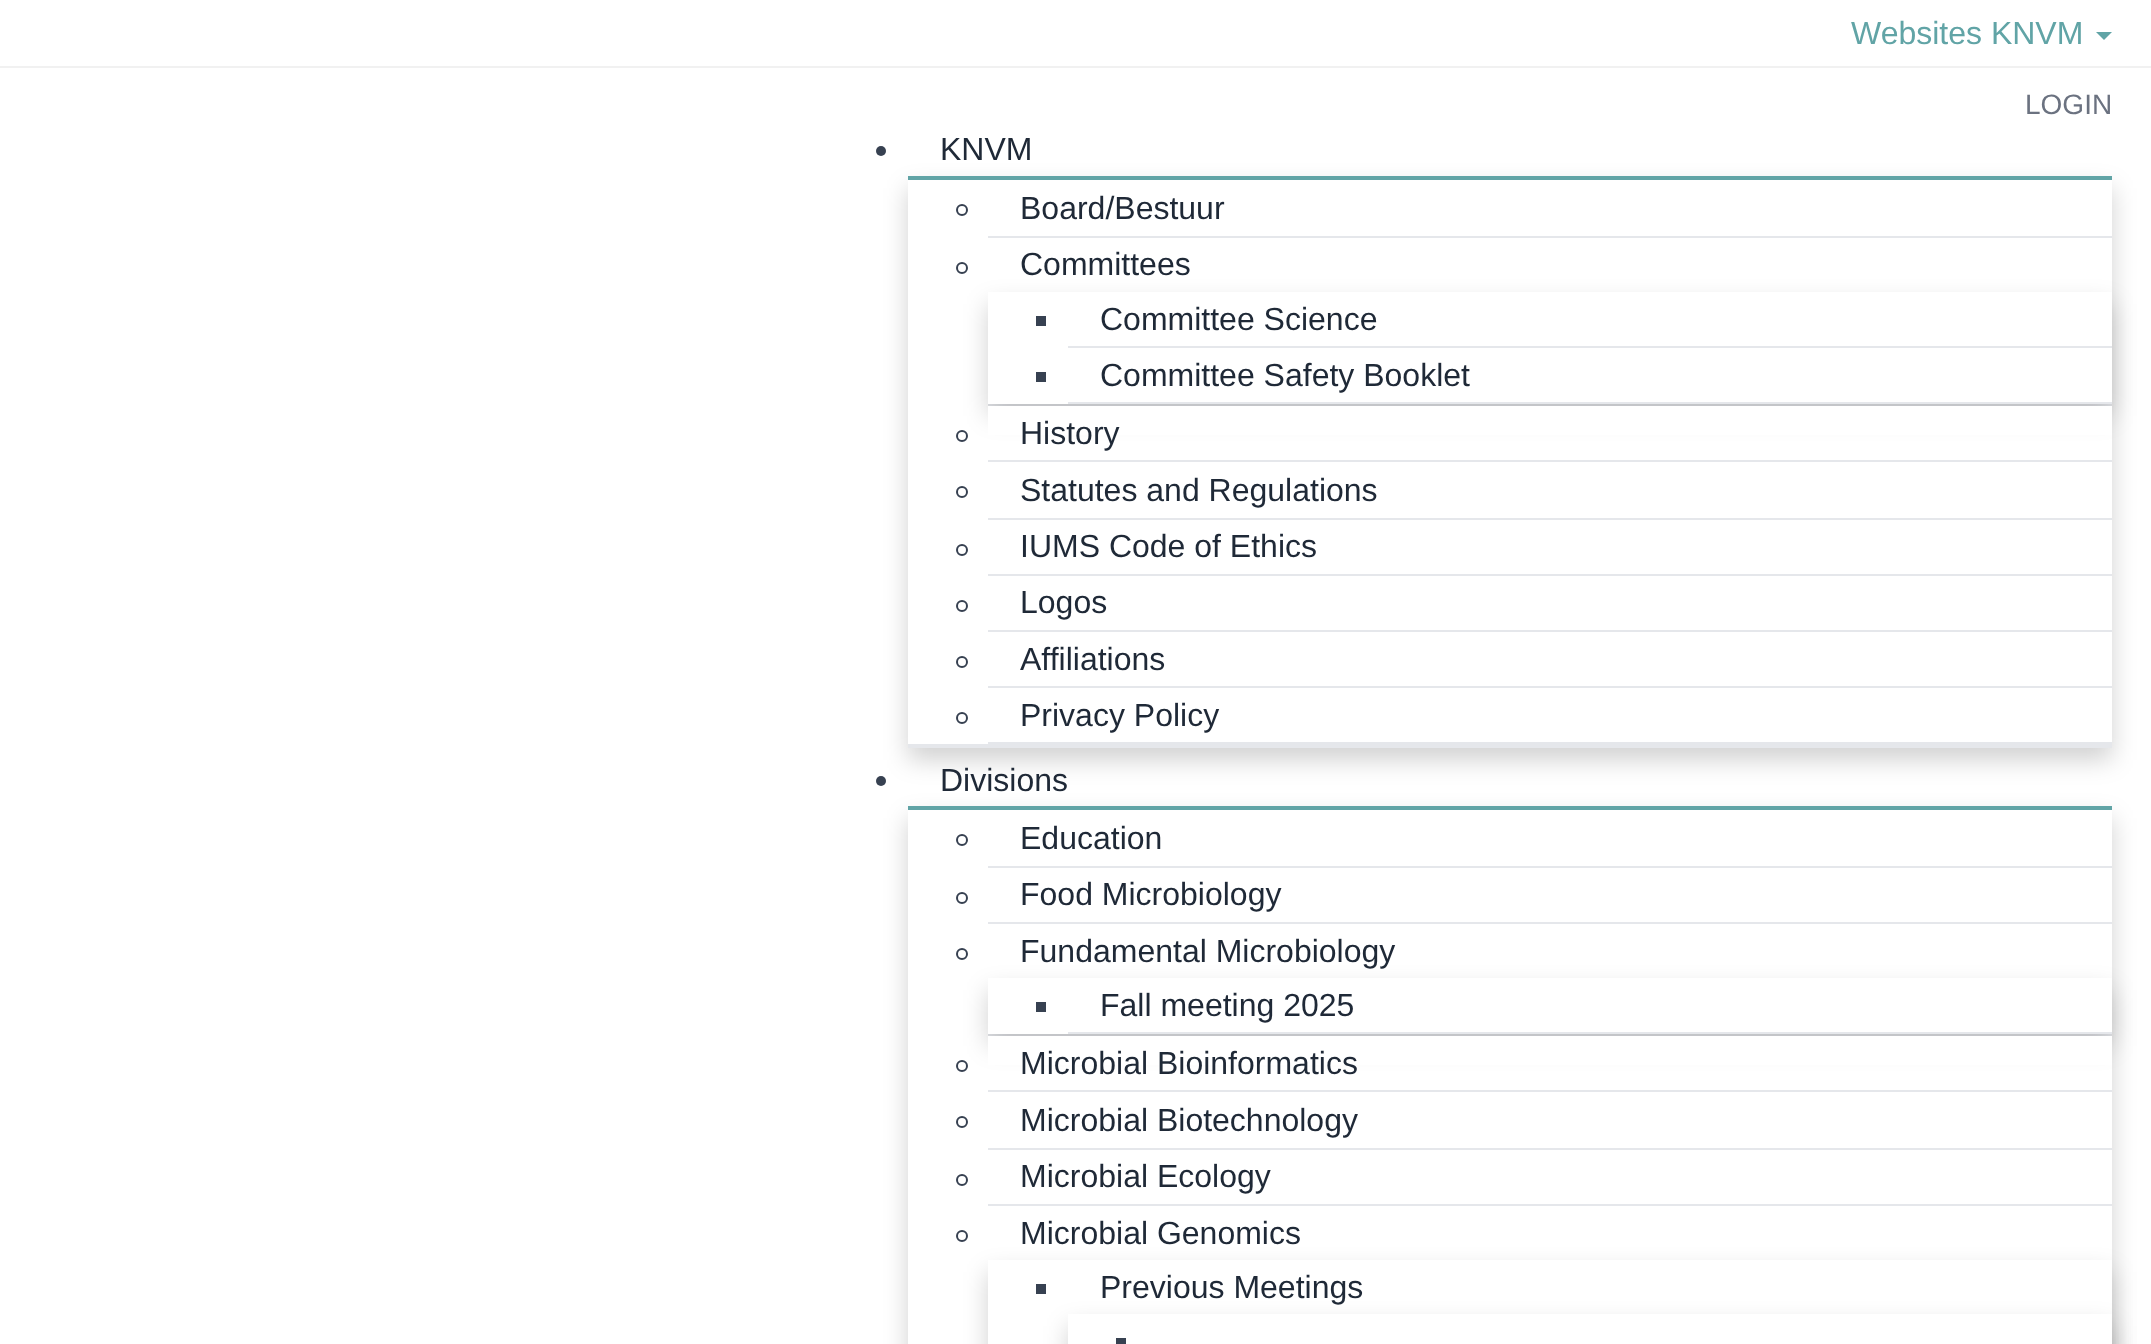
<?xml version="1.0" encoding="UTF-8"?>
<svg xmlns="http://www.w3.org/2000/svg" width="2151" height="1344">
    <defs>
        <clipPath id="clip1"><path d="M 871 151 H 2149 V 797 H 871 Z M 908 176 H 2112 V 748 H 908 Z" clip-rule="evenodd"/></clipPath>
        <filter id="blur1" x="-50%" y="-200%" width="200%" height="500%"><feGaussianBlur stdDeviation="12"/></filter>
        <clipPath id="clip2"><path d="M 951 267 H 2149 V 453 H 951 Z M 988 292 H 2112 V 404 H 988 Z" clip-rule="evenodd"/></clipPath>
        <clipPath id="clip3"><path d="M 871 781 H 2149 V 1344 H 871 Z M 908 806 H 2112 V 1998 H 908 Z" clip-rule="evenodd"/></clipPath>
        <clipPath id="clip4"><path d="M 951 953 H 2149 V 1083 H 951 Z M 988 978 H 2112 V 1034 H 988 Z" clip-rule="evenodd"/></clipPath>
        <clipPath id="clip5"><path d="M 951 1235 H 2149 V 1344 H 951 Z M 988 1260 H 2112 V 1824 H 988 Z" clip-rule="evenodd"/></clipPath>
        <clipPath id="clip6"><path d="M 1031 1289 H 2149 V 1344 H 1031 Z M 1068 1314 H 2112 V 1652 H 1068 Z" clip-rule="evenodd"/></clipPath>
    </defs>
    <rect width="100%" height="100%" fill="#FFFFFF"/>
    <rect x="0" y="66" width="2151" height="2" fill="#F1F1F1"/>
    <text x="1851" y="44" font-family="Liberation Sans" font-size="32" fill="#61A4A6">Websites KNVM</text>
    <path d="M 2096 32 H 2112 L 2104 40 Z" fill="#61A4A6"/>
    <text x="2025" y="114" font-family="Liberation Sans" font-size="28" fill="#6B7280">LOGIN</text>
    <g clip-path="url(#clip1)">
        <rect x="908" y="188" width="1204" height="572" fill="#000000" fill-opacity="0.18" filter="url(#blur1)"/>
    </g>
    <circle cx="881" cy="151" r="5" fill="#374151"/>
    <text x="940" y="160" font-family="Liberation Sans" font-size="32" fill="#1F2937">KNVM</text>
    <rect x="908" y="176" width="1204" height="4" fill="#61A4A6"/>
    <rect x="908" y="744" width="1204" height="4" fill="#E5E7EB"/>
    <rect x="988" y="236" width="1124" height="2" fill="#E5E7EB"/>
    <circle cx="962" cy="210" r="5" fill="none" stroke="#374151" stroke-width="2"/>
    <text x="1020" y="219" font-family="Liberation Sans" font-size="32" fill="#1F2937">Board/Bestuur</text>
    <rect x="988" y="404" width="1124" height="2" fill="#E5E7EB"/>
    <g clip-path="url(#clip2)">
        <rect x="988" y="304" width="1124" height="112" fill="#000000" fill-opacity="0.18" filter="url(#blur1)"/>
    </g>
    <circle cx="962" cy="268" r="5" fill="none" stroke="#374151" stroke-width="2"/>
    <text x="1020" y="275" font-family="Liberation Sans" font-size="32" fill="#1F2937">Committees</text>
    <rect x="1068" y="346" width="1044" height="2" fill="#E5E7EB"/>
    <rect x="1036" y="316" width="10" height="10" fill="#374151"/>
    <text x="1100" y="330" font-family="Liberation Sans" font-size="32" fill="#1F2937">Committee Science</text>
    <rect x="1068" y="402" width="1044" height="2" fill="#E5E7EB"/>
    <rect x="1036" y="372" width="10" height="10" fill="#374151"/>
    <text x="1100" y="386" font-family="Liberation Sans" font-size="32" fill="#1F2937">Committee Safety Booklet</text>
    <rect x="988" y="406" width="1124" height="29" fill="#FFFFFF"/>
    <rect x="988" y="460" width="1124" height="2" fill="#E5E7EB"/>
    <circle cx="962" cy="436" r="5" fill="none" stroke="#374151" stroke-width="2"/>
    <text x="1020" y="444" font-family="Liberation Sans" font-size="32" fill="#1F2937">History</text>
    <rect x="988" y="518" width="1124" height="2" fill="#E5E7EB"/>
    <circle cx="962" cy="492" r="5" fill="none" stroke="#374151" stroke-width="2"/>
    <text x="1020" y="501" font-family="Liberation Sans" font-size="32" fill="#1F2937">Statutes and Regulations</text>
    <rect x="988" y="574" width="1124" height="2" fill="#E5E7EB"/>
    <circle cx="962" cy="550" r="5" fill="none" stroke="#374151" stroke-width="2"/>
    <text x="1020" y="557" font-family="Liberation Sans" font-size="32" fill="#1F2937">IUMS Code of Ethics</text>
    <rect x="988" y="630" width="1124" height="2" fill="#E5E7EB"/>
    <circle cx="962" cy="606" r="5" fill="none" stroke="#374151" stroke-width="2"/>
    <text x="1020" y="613" font-family="Liberation Sans" font-size="32" fill="#1F2937">Logos</text>
    <rect x="988" y="686" width="1124" height="2" fill="#E5E7EB"/>
    <circle cx="962" cy="662" r="5" fill="none" stroke="#374151" stroke-width="2"/>
    <text x="1020" y="670" font-family="Liberation Sans" font-size="32" fill="#1F2937">Affiliations</text>
    <rect x="988" y="742" width="1124" height="2" fill="#E5E7EB"/>
    <circle cx="962" cy="718" r="5" fill="none" stroke="#374151" stroke-width="2"/>
    <text x="1020" y="726" font-family="Liberation Sans" font-size="32" fill="#1F2937">Privacy Policy</text>
    <g clip-path="url(#clip3)">
        <rect x="908" y="818" width="1204" height="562" fill="#000000" fill-opacity="0.18" filter="url(#blur1)"/>
    </g>
    <circle cx="881" cy="781" r="5" fill="#374151"/>
    <text x="940" y="791" font-family="Liberation Sans" font-size="32" fill="#1F2937">Divisions</text>
    <rect x="908" y="806" width="1204" height="4" fill="#61A4A6"/>
    <rect x="988" y="866" width="1124" height="2" fill="#E5E7EB"/>
    <circle cx="962" cy="840" r="5" fill="none" stroke="#374151" stroke-width="2"/>
    <text x="1020" y="849" font-family="Liberation Sans" font-size="32" fill="#1F2937">Education</text>
    <rect x="988" y="922" width="1124" height="2" fill="#E5E7EB"/>
    <circle cx="962" cy="898" r="5" fill="none" stroke="#374151" stroke-width="2"/>
    <text x="1020" y="905" font-family="Liberation Sans" font-size="32" fill="#1F2937">Food Microbiology</text>
    <rect x="988" y="1034" width="1124" height="2" fill="#E5E7EB"/>
    <g clip-path="url(#clip4)">
        <rect x="988" y="990" width="1124" height="56" fill="#000000" fill-opacity="0.18" filter="url(#blur1)"/>
    </g>
    <circle cx="962" cy="954" r="5" fill="none" stroke="#374151" stroke-width="2"/>
    <text x="1020" y="962" font-family="Liberation Sans" font-size="32" fill="#1F2937">Fundamental Microbiology</text>
    <rect x="1068" y="1032" width="1044" height="2" fill="#E5E7EB"/>
    <rect x="1036" y="1002" width="10" height="10" fill="#374151"/>
    <text x="1100" y="1016" font-family="Liberation Sans" font-size="32" fill="#1F2937">Fall meeting 2025</text>
    <rect x="988" y="1036" width="1124" height="29" fill="#FFFFFF"/>
    <rect x="988" y="1090" width="1124" height="2" fill="#E5E7EB"/>
    <circle cx="962" cy="1066" r="5" fill="none" stroke="#374151" stroke-width="2"/>
    <text x="1020" y="1074" font-family="Liberation Sans" font-size="32" fill="#1F2937">Microbial Bioinformatics</text>
    <rect x="988" y="1148" width="1124" height="2" fill="#E5E7EB"/>
    <circle cx="962" cy="1122" r="5" fill="none" stroke="#374151" stroke-width="2"/>
    <text x="1020" y="1131" font-family="Liberation Sans" font-size="32" fill="#1F2937">Microbial Biotechnology</text>
    <rect x="988" y="1204" width="1124" height="2" fill="#E5E7EB"/>
    <circle cx="962" cy="1180" r="5" fill="none" stroke="#374151" stroke-width="2"/>
    <text x="1020" y="1187" font-family="Liberation Sans" font-size="32" fill="#1F2937">Microbial Ecology</text>
    <g clip-path="url(#clip5)">
        <rect x="988" y="1272" width="1124" height="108" fill="#000000" fill-opacity="0.18" filter="url(#blur1)"/>
    </g>
    <circle cx="962" cy="1236" r="5" fill="none" stroke="#374151" stroke-width="2"/>
    <text x="1020" y="1244" font-family="Liberation Sans" font-size="32" fill="#1F2937">Microbial Genomics</text>
    <g clip-path="url(#clip6)">
        <rect x="1068" y="1326" width="1044" height="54" fill="#000000" fill-opacity="0.18" filter="url(#blur1)"/>
    </g>
    <rect x="1036" y="1284" width="10" height="10" fill="#374151"/>
    <text x="1100" y="1298" font-family="Liberation Sans" font-size="32" fill="#1F2937">Previous Meetings</text>
    <rect x="1116" y="1338" width="10" height="6" fill="#374151"/>
</svg>
